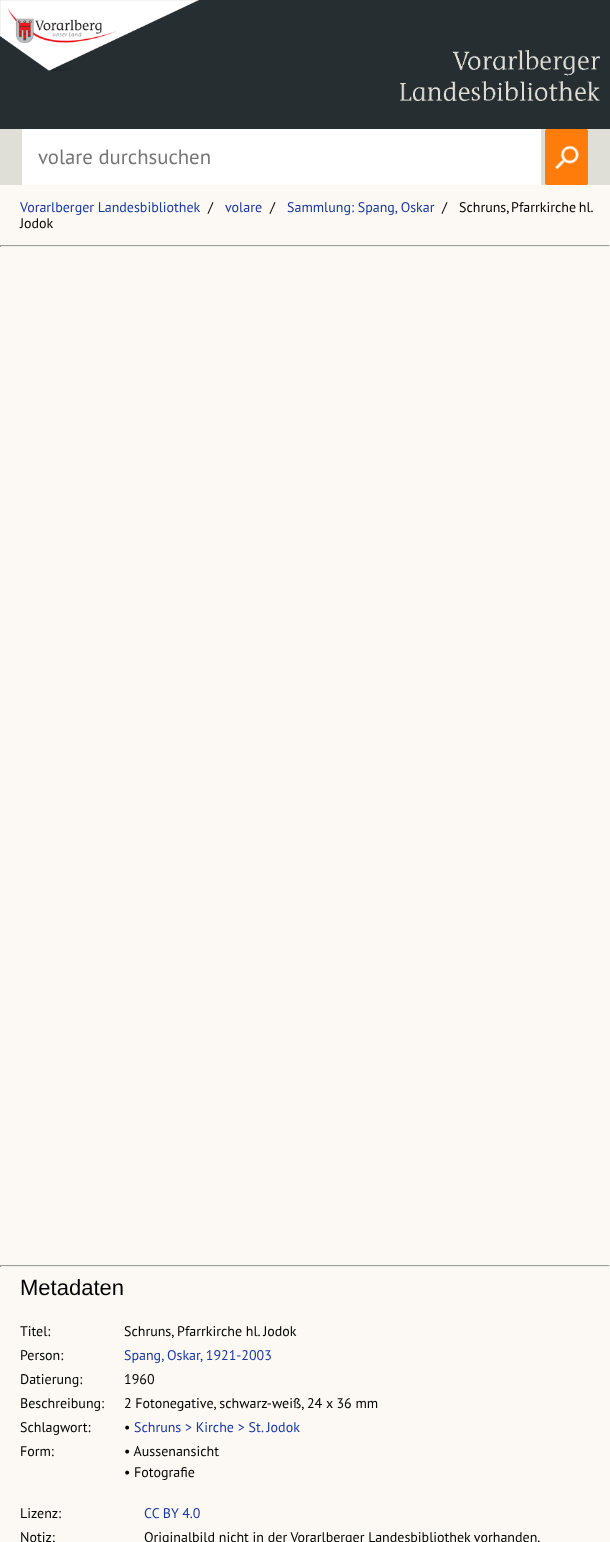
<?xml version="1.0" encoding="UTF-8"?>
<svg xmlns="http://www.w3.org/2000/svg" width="610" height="1542">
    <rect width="100%" height="100%" fill="#FCF8F3"/>
    <rect x="0" y="0" width="610" height="129" fill="#262E31"/>
    <image x="0" y="0" width="199" height="71" href="img_01.png"/>
    <image x="400" y="50" width="200" height="51" href="img_02.png"/>
    <rect x="0" y="129" width="610" height="56" fill="#DFDED7"/>
    <rect x="22" y="129" width="519" height="56" fill="#FFFFFF"/>
    <text x="38" y="164" font-family="PT Sans" font-size="20.75" fill="#757575">volare durchsuchen</text>
    <image x="545" y="129" width="43" height="56" href="img_03.png"/>
    <text x="20" y="212" font-family="PT Sans" font-size="14" fill="#1837A1">Vorarlberger Landesbibliothek</text>
    <text x="208" y="212" font-family="PT Sans" font-size="14" fill="#000000">/</text>
    <text x="225" y="212" font-family="PT Sans" font-size="14" fill="#1837A1">volare</text>
    <text x="270" y="212" font-family="PT Sans" font-size="14" fill="#000000">/</text>
    <text x="287" y="212" font-family="PT Sans" font-size="14" fill="#1837A1">Sammlung: Spang, Oskar</text>
    <text x="442" y="212" font-family="PT Sans" font-size="14" fill="#000000">/</text>
    <text x="459" y="212" word-spacing="-1" font-family="PT Sans" font-size="14" fill="#000000">Schruns, Pfarrkirche hl.</text>
    <text x="20" y="228" font-family="PT Sans" font-size="14" fill="#000000">Jodok</text>
    <rect x="0" y="245" width="610" height="1" fill="#9F9F9F"/>
    <rect x="609" y="245" width="1" height="2" fill="#EEEEEE"/>
    <rect x="0" y="246" width="610" height="1" fill="#EEEEEE"/>
    <rect x="0" y="245" width="1" height="2" fill="#9F9F9F"/>
    <rect x="0" y="1265" width="610" height="1" fill="#9F9F9F"/>
    <rect x="609" y="1265" width="1" height="2" fill="#EEEEEE"/>
    <rect x="0" y="1266" width="610" height="1" fill="#EEEEEE"/>
    <rect x="0" y="1265" width="1" height="2" fill="#9F9F9F"/>
    <text x="20" y="1295" font-family="Liberation Sans" font-size="22" fill="#000000">Metadaten</text>
    <text x="20" y="1336" font-family="PT Sans" font-size="14" fill="#000000">Titel:</text>
    <text x="124" y="1336" font-family="PT Sans" font-size="14" fill="#000000">Schruns, Pfarrkirche hl. Jodok</text>
    <text x="20" y="1360" font-family="PT Sans" font-size="14" fill="#000000">Person:</text>
    <text x="124" y="1360" font-family="PT Sans" font-size="14" fill="#1837A1">Spang, Oskar, 1921-2003</text>
    <text x="20" y="1384" font-family="PT Sans" font-size="14" fill="#000000">Datierung:</text>
    <text x="124" y="1384" font-family="PT Sans" font-size="14" fill="#000000">1960</text>
    <text x="20" y="1408" font-family="PT Sans" font-size="14" fill="#000000">Beschreibung:</text>
    <text x="124" y="1408" font-family="PT Sans" font-size="14" fill="#000000">2 Fotonegative, schwarz-weiß, 24 x 36 mm</text>
    <text x="20" y="1432" font-family="PT Sans" font-size="14" fill="#000000">Schlagwort:</text>
    <text x="124" y="1432" font-family="PT Sans" font-size="14" fill="#000000">•</text>
    <text x="134" y="1432" font-family="PT Sans" font-size="14" fill="#1837A1">Schruns &gt; Kirche &gt; St. Jodok</text>
    <text x="20" y="1456" font-family="PT Sans" font-size="14" fill="#000000">Form:</text>
    <text font-family="PT Sans" font-size="14" fill="#000000">
        <tspan x="124" y="1456">• Aussenansicht</tspan>
        <tspan x="124" y="1477">• Fotografie</tspan>
    </text>
    <text x="20" y="1518" font-family="PT Sans" font-size="14" fill="#000000">Lizenz:</text>
    <text x="144" y="1518" font-family="PT Sans" font-size="14" fill="#1837A1">CC BY 4.0</text>
    <text x="20" y="1542" font-family="PT Sans" font-size="14" fill="#000000">Notiz:</text>
    <text x="144" y="1542" font-family="PT Sans" font-size="14" fill="#000000">Originalbild nicht in der Vorarlberger Landesbibliothek vorhanden.</text>
</svg>
